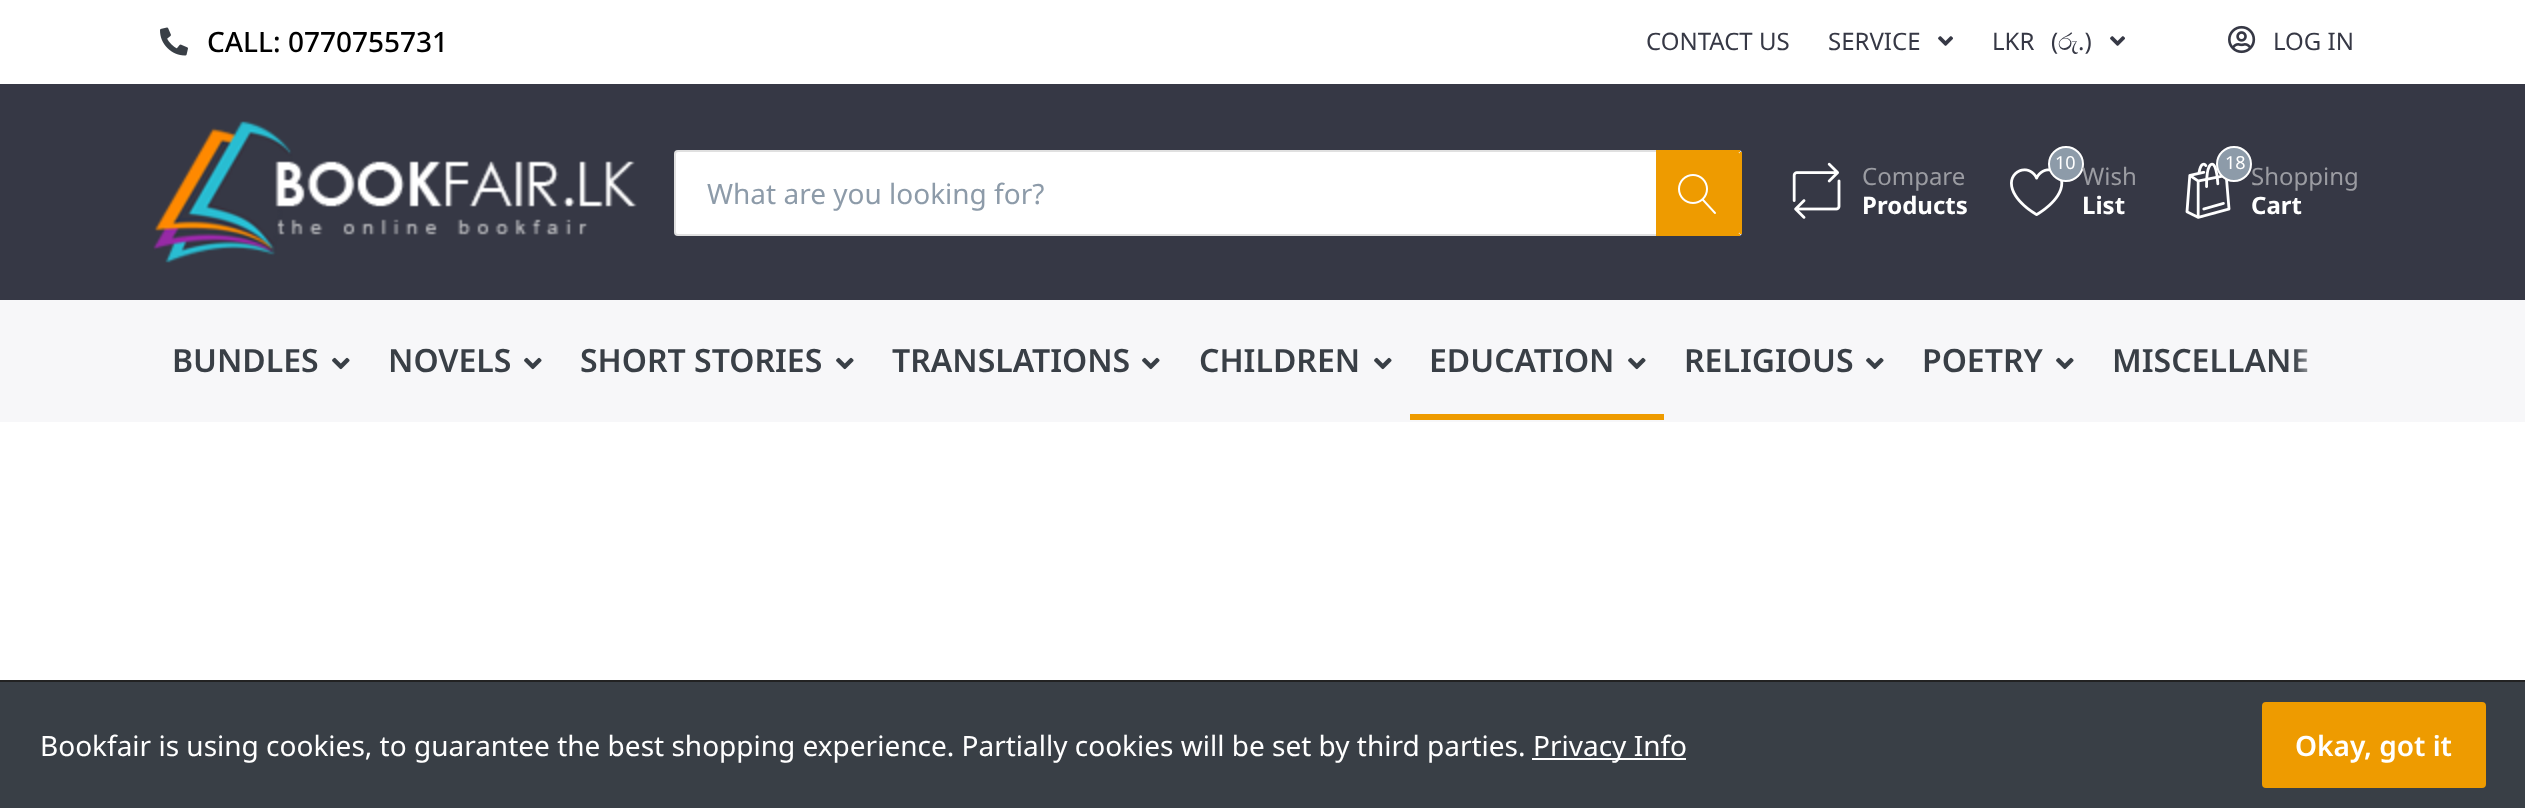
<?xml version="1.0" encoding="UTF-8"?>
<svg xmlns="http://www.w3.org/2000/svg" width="2525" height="808">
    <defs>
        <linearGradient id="g1" gradientUnits="userSpaceOnUse" x1="2294" y1="360" x2="2374" y2="360"><stop offset="0" stop-color="#F7F7F9" stop-opacity="0"/><stop offset="0.4" stop-color="#F7F7F9"/><stop offset="1" stop-color="#F7F7F9"/></linearGradient>
    </defs>
    <rect width="100%" height="100%" fill="#FFFFFF"/>
    <rect x="0" y="84" width="2525" height="216" fill="#363845"/>
    <image x="160" y="27" width="28" height="29" href="img_01.png"/>
    <text x="207" y="52" font-family="Noto Sans" font-size="28" font-weight="500" fill="#000000">CALL: 0770755731</text>
    <text x="1646" y="50" font-family="Noto Sans" font-size="24" fill="#363845">CONTACT US</text>
    <text x="1828" y="50" font-family="Noto Sans" font-size="24" fill="#363845">SERVICE</text>
    <image x="1938" y="36" width="15" height="10" href="img_02.png"/>
    <text x="1992" y="50" font-family="Noto Sans" font-size="24" fill="#363845">LKR</text>
    <text x="2051" y="50" font-family="Noto Sans" font-size="24" fill="#363845">(</text>
    <text x="2058" y="50" font-family="FreeSerif" font-size="24" fill="#363845">රු</text>
    <text x="2078" y="50" font-family="Noto Sans" font-size="24" fill="#363845">.)</text>
    <image x="2110" y="36" width="15" height="10" href="img_02.png"/>
    <image x="2228" y="25" width="28" height="29" href="img_03.png"/>
    <text x="2273" y="50" font-family="Noto Sans" font-size="24" fill="#363845">LOG IN</text>
    <image x="153" y="121" width="484" height="142" href="img_04.png"/>
    <rect x="674" y="150" width="1068" height="86" rx="4" fill="#FFFFFF"/>
    <rect x="675" y="151" width="1066" height="84" rx="3" fill="none" stroke="#000000" stroke-opacity="0.12" stroke-width="2"/>
    <text x="707" y="204" font-family="Noto Sans" font-size="28" fill="#8D9BA9">What are you looking for?</text>
    <path d="M 1656 152 H 1738 C 1739 152 1740 153 1740 154 V 232 C 1740 233 1739 234 1738 234 H 1656 Z" fill="#EE9B00"/>
    <rect x="1656" y="150" width="84" height="2" fill="#EE9B00"/>
    <rect x="1740" y="152" width="2" height="82" fill="#EE9B00"/>
    <rect x="1656" y="234" width="84" height="2" fill="#EE9B00"/>
    <image x="1678" y="174" width="38" height="40" href="img_05.png"/>
    <image x="1792" y="162" width="49" height="57" href="img_06.png"/>
    <text x="1862" y="185" font-family="Noto Sans" font-size="24" fill="#9B9CA2">Compare</text>
    <text x="1862" y="214" font-family="Noto Sans" font-size="24" font-weight="700" fill="#FFFFFF">Products</text>
    <image x="2010" y="168" width="54" height="48" href="img_07.png"/>
    <circle cx="2066" cy="164" r="17" fill="#8D9BA9" stroke="#FFFFFF" stroke-width="2"/>
    <text x="2055" y="169" font-family="Noto Sans" font-size="18" fill="#FFFFFF">10</text>
    <text x="2082" y="185" font-family="Noto Sans" font-size="24" fill="#9B9CA2">Wish</text>
    <text x="2082" y="214" font-family="Noto Sans" font-size="24" font-weight="700" fill="#FFFFFF">List</text>
    <image x="2185" y="162" width="46" height="57" href="img_08.png"/>
    <circle cx="2234" cy="164" r="17" fill="#8D9BA9" stroke="#FFFFFF" stroke-width="2"/>
    <text x="2225" y="169" font-family="Noto Sans" font-size="18" fill="#FFFFFF">18</text>
    <text x="2251" y="185" font-family="Noto Sans" font-size="24" fill="#9B9CA2">Shopping</text>
    <text x="2251" y="214" font-family="Noto Sans" font-size="24" font-weight="700" fill="#FFFFFF">Cart</text>
    <rect x="0" y="300" width="2525" height="122" fill="#F7F7F9"/>
    <text x="172" y="372" font-family="Noto Sans" font-size="32" font-weight="600" fill="#393F46">BUNDLES</text>
    <image x="332" y="357" width="18" height="13" href="img_09.png"/>
    <text x="388" y="372" font-family="Noto Sans" font-size="32" font-weight="600" fill="#393F46">NOVELS</text>
    <image x="524" y="357" width="18" height="13" href="img_09.png"/>
    <text x="580" y="372" font-family="Noto Sans" font-size="32" font-weight="600" fill="#393F46">SHORT STORIES</text>
    <image x="836" y="357" width="18" height="13" href="img_09.png"/>
    <text x="892" y="372" font-family="Noto Sans" font-size="32" font-weight="600" fill="#393F46">TRANSLATIONS</text>
    <image x="1142" y="357" width="18" height="13" href="img_09.png"/>
    <text x="1199" y="372" font-family="Noto Sans" font-size="32" font-weight="600" fill="#393F46">CHILDREN</text>
    <image x="1374" y="357" width="18" height="13" href="img_09.png"/>
    <text x="1429" y="372" font-family="Noto Sans" font-size="32" font-weight="600" fill="#393F46">EDUCATION</text>
    <image x="1628" y="357" width="18" height="13" href="img_09.png"/>
    <rect x="1410" y="414" width="254" height="6" fill="#EE9B00"/>
    <text x="1684" y="372" font-family="Noto Sans" font-size="32" font-weight="600" fill="#393F46">RELIGIOUS</text>
    <image x="1866" y="357" width="18" height="13" href="img_09.png"/>
    <text x="1922" y="372" font-family="Noto Sans" font-size="32" font-weight="600" fill="#393F46">POETRY</text>
    <image x="2056" y="357" width="18" height="13" href="img_09.png"/>
    <text x="2112" y="372" font-family="Noto Sans" font-size="32" font-weight="600" fill="#393F46">MISCELLANE</text>
    <rect x="2294" y="300" width="80" height="120" rx="4" fill="url(#g1)"/>
    <rect x="0" y="682" width="2525" height="126" fill="#393F46"/>
    <rect x="0" y="680" width="2525" height="2" fill="#222222"/>
    <text x="40" y="756" font-family="Noto Sans" font-size="28" fill="#FFFFFF">Bookfair is using cookies, to guarantee the best shopping experience. Partially cookies will be set by third parties.</text>
    <rect x="1532" y="758" width="154" height="2" fill="#FFFFFF"/>
    <text x="1533" y="756" font-family="Noto Sans" font-size="28" fill="#FFFFFF">Privacy Info</text>
    <rect x="2263" y="703" width="222" height="84" rx="3" fill="#EE9B00" stroke="#EE9B00" stroke-width="2"/>
    <text x="2295" y="756" font-family="Noto Sans" font-size="28" font-weight="600" fill="#FFFFFF">Okay, got it</text>
</svg>
